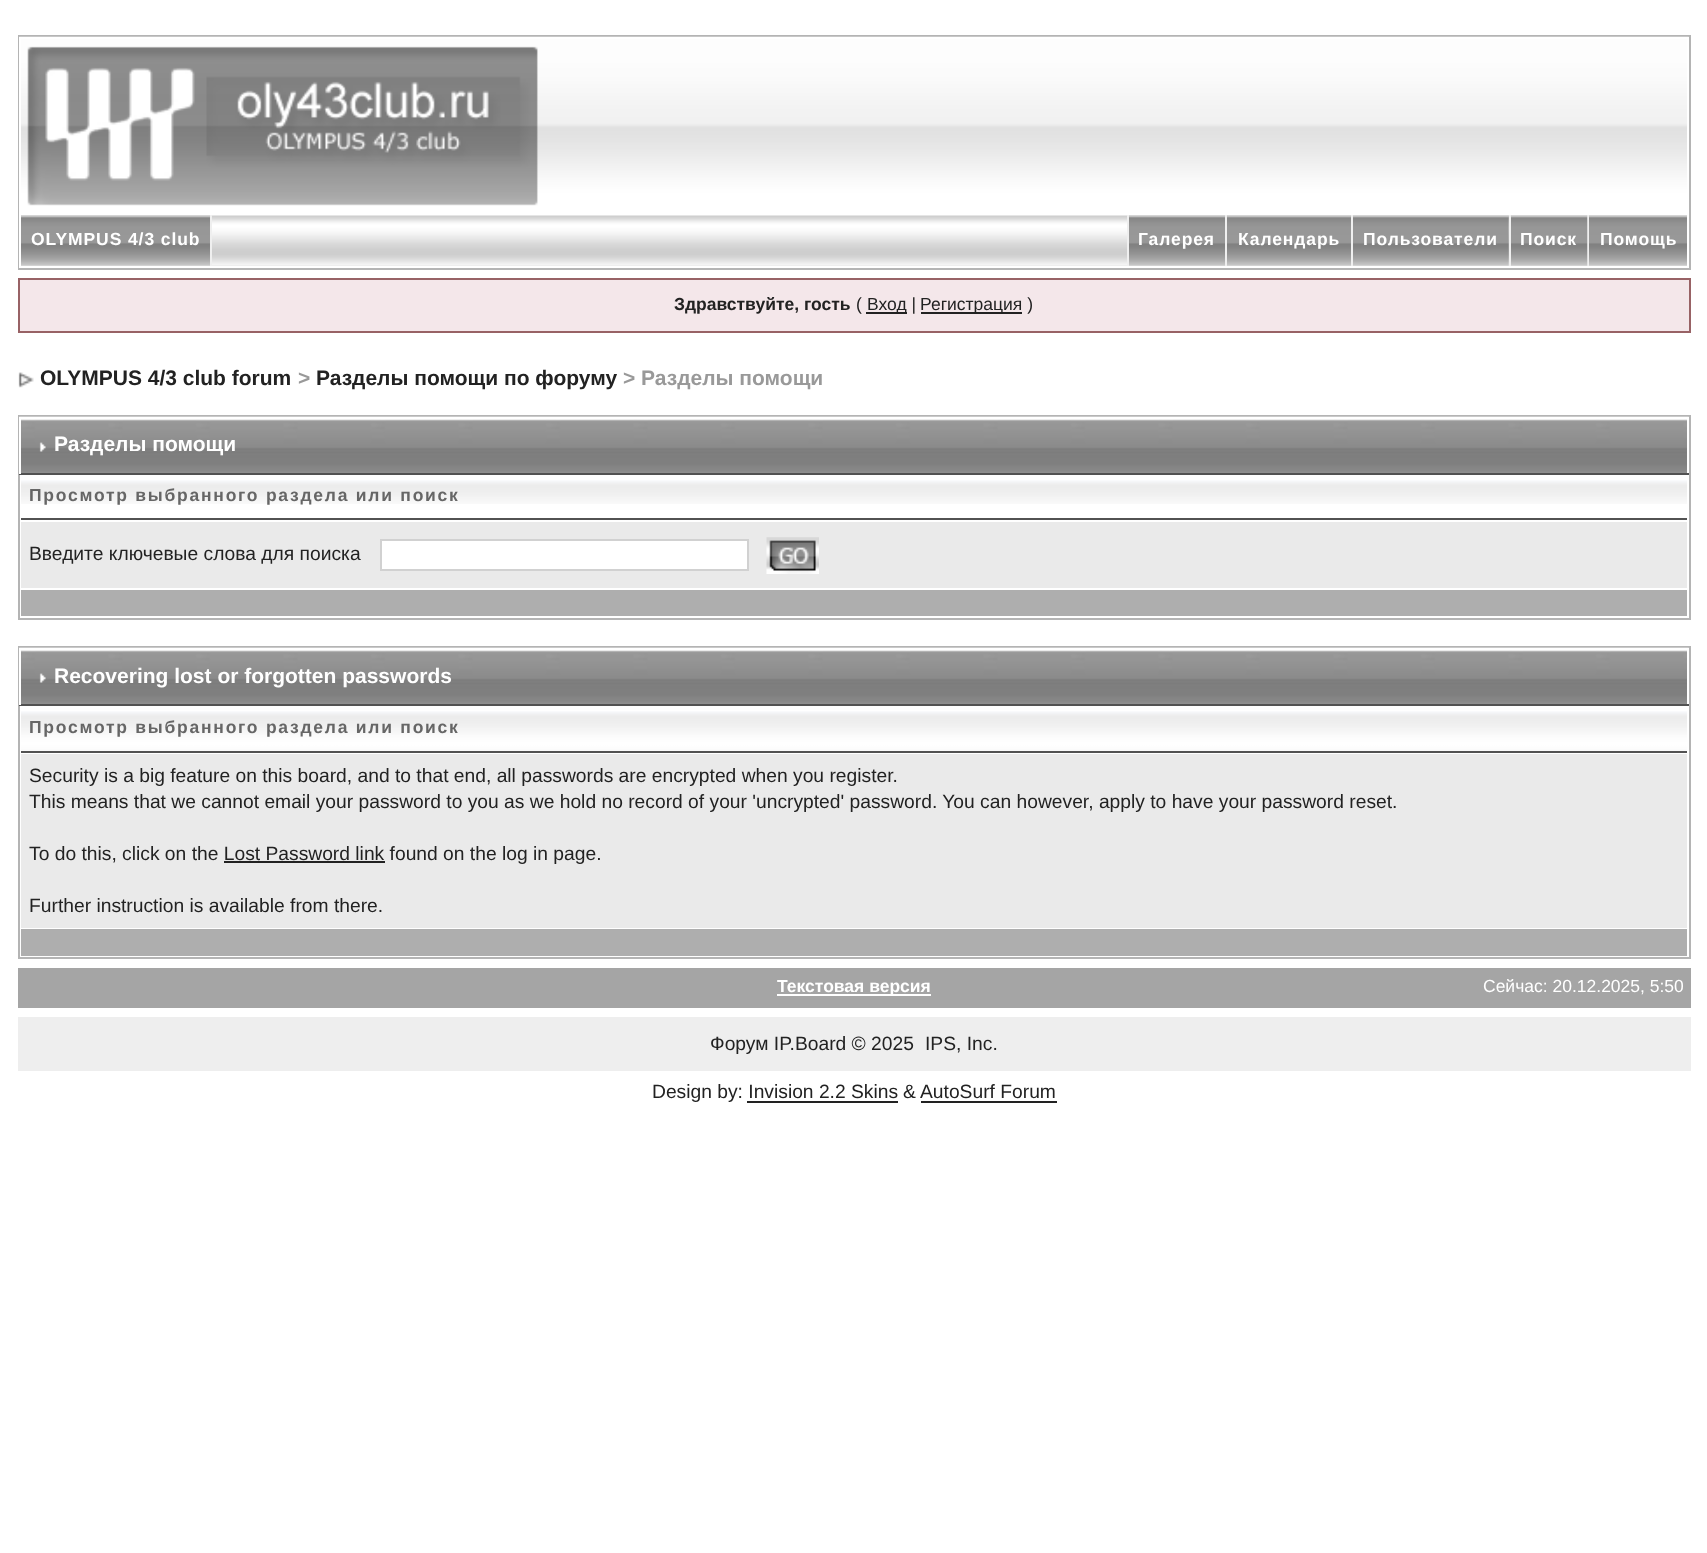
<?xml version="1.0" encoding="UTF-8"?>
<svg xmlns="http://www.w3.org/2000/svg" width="1707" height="1553">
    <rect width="100%" height="100%" fill="#FFFFFF"/>
    <rect x="19" y="36" width="1671" height="233" fill="none" stroke="#B4B4B4" stroke-width="2"/>
    <image x="19" y="36" width="1670" height="180" href="img_01.png"/>
    <rect x="20" y="38" width="1668" height="176" fill="none" stroke="#FFFFFF" stroke-width="2"/>
    <image x="27" y="46" width="511" height="160" href="img_02.png"/>
    <image x="21" y="215" width="1666" height="51" href="img_03.png"/>
    <rect x="19" y="215" width="1" height="53" fill="#FFFFFF"/>
    <image x="21" y="215" width="189" height="51" href="img_04.png"/>
    <rect x="210" y="215" width="2" height="51" fill="#EFEFEF"/>
    <text x="31" y="245" font-family="Liberation Sans" font-size="17.5" font-weight="700" letter-spacing="0.9" fill="#FFFFFF">OLYMPUS 4/3 club</text>
    <image x="1129" y="215" width="96" height="51" href="img_05.png"/>
    <rect x="1127" y="215" width="2" height="51" fill="#EFEFEF"/>
    <text x="1138" y="245" font-family="Liberation Sans" font-size="17.5" font-weight="700" letter-spacing="0.9" fill="#FFFFFF">Галерея</text>
    <image x="1227" y="215" width="124" height="51" href="img_06.png"/>
    <rect x="1225" y="215" width="2" height="51" fill="#EFEFEF"/>
    <text x="1238" y="245" font-family="Liberation Sans" font-size="17.5" font-weight="700" letter-spacing="0.9" fill="#FFFFFF">Календарь</text>
    <rect x="1587" y="215" width="2" height="51" fill="#EFEFEF"/>
    <image x="1508" y="215" width="80" height="51" href="img_08.png"/>
    <image x="1353" y="215" width="156" height="51" href="img_07.png"/>
    <rect x="1351" y="215" width="2" height="51" fill="#EFEFEF"/>
    <text x="1363" y="245" font-family="Liberation Sans" font-size="17.5" font-weight="700" letter-spacing="0.9" fill="#FFFFFF">Пользователи</text>
    <rect x="1509" y="215" width="2" height="51" fill="#EFEFEF"/>
    <text x="1520" y="245" font-family="Liberation Sans" font-size="17.5" font-weight="700" letter-spacing="0.9" fill="#FFFFFF">Поиск</text>
    <image x="1589" y="215" width="98" height="51" href="img_09.png"/>
    <text x="1600" y="245" font-family="Liberation Sans" font-size="17.5" font-weight="700" letter-spacing="0.9" fill="#FFFFFF">Помощь</text>
    <rect x="19" y="279" width="1671" height="53" fill="#F4E7EA" stroke="#986265" stroke-width="2"/>
    <text x="674" y="310" font-family="Liberation Sans" font-size="17.5" font-weight="700" fill="#222222">Здравствуйте, гость</text>
    <text x="856" y="310" font-family="Liberation Sans" font-size="17.5" fill="#222222">(</text>
    <rect x="866" y="312" width="41" height="2" fill="#222222"/>
    <text x="867" y="310" font-family="Liberation Sans" font-size="17.5" fill="#222222">Вход |</text>
    <rect x="921" y="312" width="101" height="2" fill="#222222"/>
    <text x="920" y="310" font-family="Liberation Sans" font-size="17.5" fill="#222222">Регистрация )</text>
    <image x="18" y="372" width="16" height="16" href="img_10.png"/>
    <text x="40" y="385" font-family="Liberation Sans" font-size="21" font-weight="700" fill="#222222">OLYMPUS 4/3 club forum</text>
    <text x="298" y="385" font-family="Liberation Sans" font-size="21" font-weight="700" fill="#999999">&gt;</text>
    <text x="316" y="385" font-family="Liberation Sans" font-size="21" font-weight="700" fill="#222222">Разделы помощи по форуму</text>
    <text x="623" y="385" font-family="Liberation Sans" font-size="21" font-weight="700" fill="#999999">&gt; Разделы помощи</text>
    <rect x="19" y="416" width="1671" height="203" fill="none" stroke="#B4B4B4" stroke-width="2"/>
    <image x="19" y="416" width="1670" height="57" href="img_11.png"/>
    <rect x="19" y="417" width="1670" height="2" fill="#FFFFFF"/>
    <rect x="1687" y="417" width="2" height="57" fill="#FFFFFF"/>
    <rect x="19" y="473" width="1670" height="2" fill="#525252"/>
    <rect x="19" y="417" width="2" height="57" fill="#FFFFFF"/>
    <image x="39" y="442" width="7" height="10" href="img_12.png"/>
    <text x="54" y="451" font-family="Liberation Sans" font-size="21" font-weight="700" fill="#FFFFFF">Разделы помощи</text>
    <image x="21" y="480" width="1666" height="24" href="img_13.png"/>
    <rect x="21" y="518" width="1666" height="2" fill="#525252"/>
    <text x="29" y="501" font-family="Liberation Sans" font-size="17.5" font-weight="700" letter-spacing="1.75" fill="#666666">Просмотр выбранного раздела или поиск</text>
    <rect x="21" y="522" width="1666" height="66" fill="#EAEAEA"/>
    <text x="29" y="560" font-family="Liberation Sans" font-size="19.25" fill="#222222">Введите ключевые слова для поиска</text>
    <rect x="381" y="540" width="367" height="30" fill="#FFFFFF" stroke="#D1D1D1" stroke-width="2"/>
    <image x="766" y="537" width="53" height="37" href="img_14.png"/>
    <rect x="21" y="590" width="1666" height="26" fill="#AEAEAE"/>
    <rect x="19" y="647" width="1671" height="311" fill="none" stroke="#B4B4B4" stroke-width="2"/>
    <image x="19" y="647" width="1670" height="57" href="img_11.png"/>
    <rect x="19" y="648" width="1670" height="2" fill="#FFFFFF"/>
    <rect x="1687" y="648" width="2" height="57" fill="#FFFFFF"/>
    <rect x="19" y="704" width="1670" height="2" fill="#525252"/>
    <rect x="19" y="648" width="2" height="57" fill="#FFFFFF"/>
    <image x="39" y="673" width="7" height="10" href="img_12.png"/>
    <text x="54" y="683" font-family="Liberation Sans" font-size="21" font-weight="700" fill="#FFFFFF">Recovering lost or forgotten passwords</text>
    <image x="21" y="711" width="1666" height="40" href="img_15.png"/>
    <rect x="21" y="751" width="1666" height="2" fill="#525252"/>
    <text x="29" y="733" font-family="Liberation Sans" font-size="17.5" font-weight="700" letter-spacing="1.75" fill="#666666">Просмотр выбранного раздела или поиск</text>
    <rect x="21" y="754" width="1666" height="174" fill="#EAEAEA"/>
    <text font-family="Liberation Sans" font-size="19.25" fill="#222222">
        <tspan x="29" y="782">Security is a big feature on this board, and to that end, all passwords are encrypted when you register.</tspan>
        <tspan x="29" y="808">This means that we cannot email your password to you as we hold no record of your 'uncrypted' password. You can however, apply to have your password reset.</tspan>
    </text>
    <text x="29" y="860" font-family="Liberation Sans" font-size="19.25" fill="#222222">To do this, click on the Lost Password link found on the log in page.</text>
    <rect x="224" y="861" width="161" height="2" fill="#222222"/>
    <text x="29" y="912" font-family="Liberation Sans" font-size="19.25" fill="#222222">Further instruction is available from there.</text>
    <rect x="21" y="929" width="1666" height="27" fill="#AEAEAE"/>
    <rect x="18" y="968" width="1673" height="40" fill="#A5A5A5"/>
    <rect x="777" y="994" width="154" height="2" fill="#FFFFFF"/>
    <text x="777" y="992" font-family="Liberation Sans" font-size="17.5" font-weight="700" fill="#FFFFFF">Текстовая версия</text>
    <text x="1483" y="992" font-family="Liberation Sans" font-size="17.5" fill="#FFFFFF">Сейчас: 20.12.2025, 5:50</text>
    <rect x="18" y="1017" width="1673" height="54" fill="#EEEEEE"/>
    <text x="710" y="1050" font-family="Liberation Sans" font-size="19.25" fill="#222222">Форум IP.Board © 2025</text>
    <text x="925" y="1050" font-family="Liberation Sans" font-size="19.25" fill="#222222">IPS, Inc.</text>
    <text x="652" y="1098" font-family="Liberation Sans" font-size="19.25" fill="#222222">Design by: Invision 2.2 Skins</text>
    <text x="903" y="1098" font-family="Liberation Sans" font-size="19.25" fill="#222222">&amp;</text>
    <text x="920" y="1098" font-family="Liberation Sans" font-size="19.25" fill="#222222">AutoSurf Forum</text>
    <rect x="921" y="1101" width="136" height="2" fill="#222222"/>
    <rect x="747" y="1101" width="151" height="2" fill="#222222"/>
</svg>
